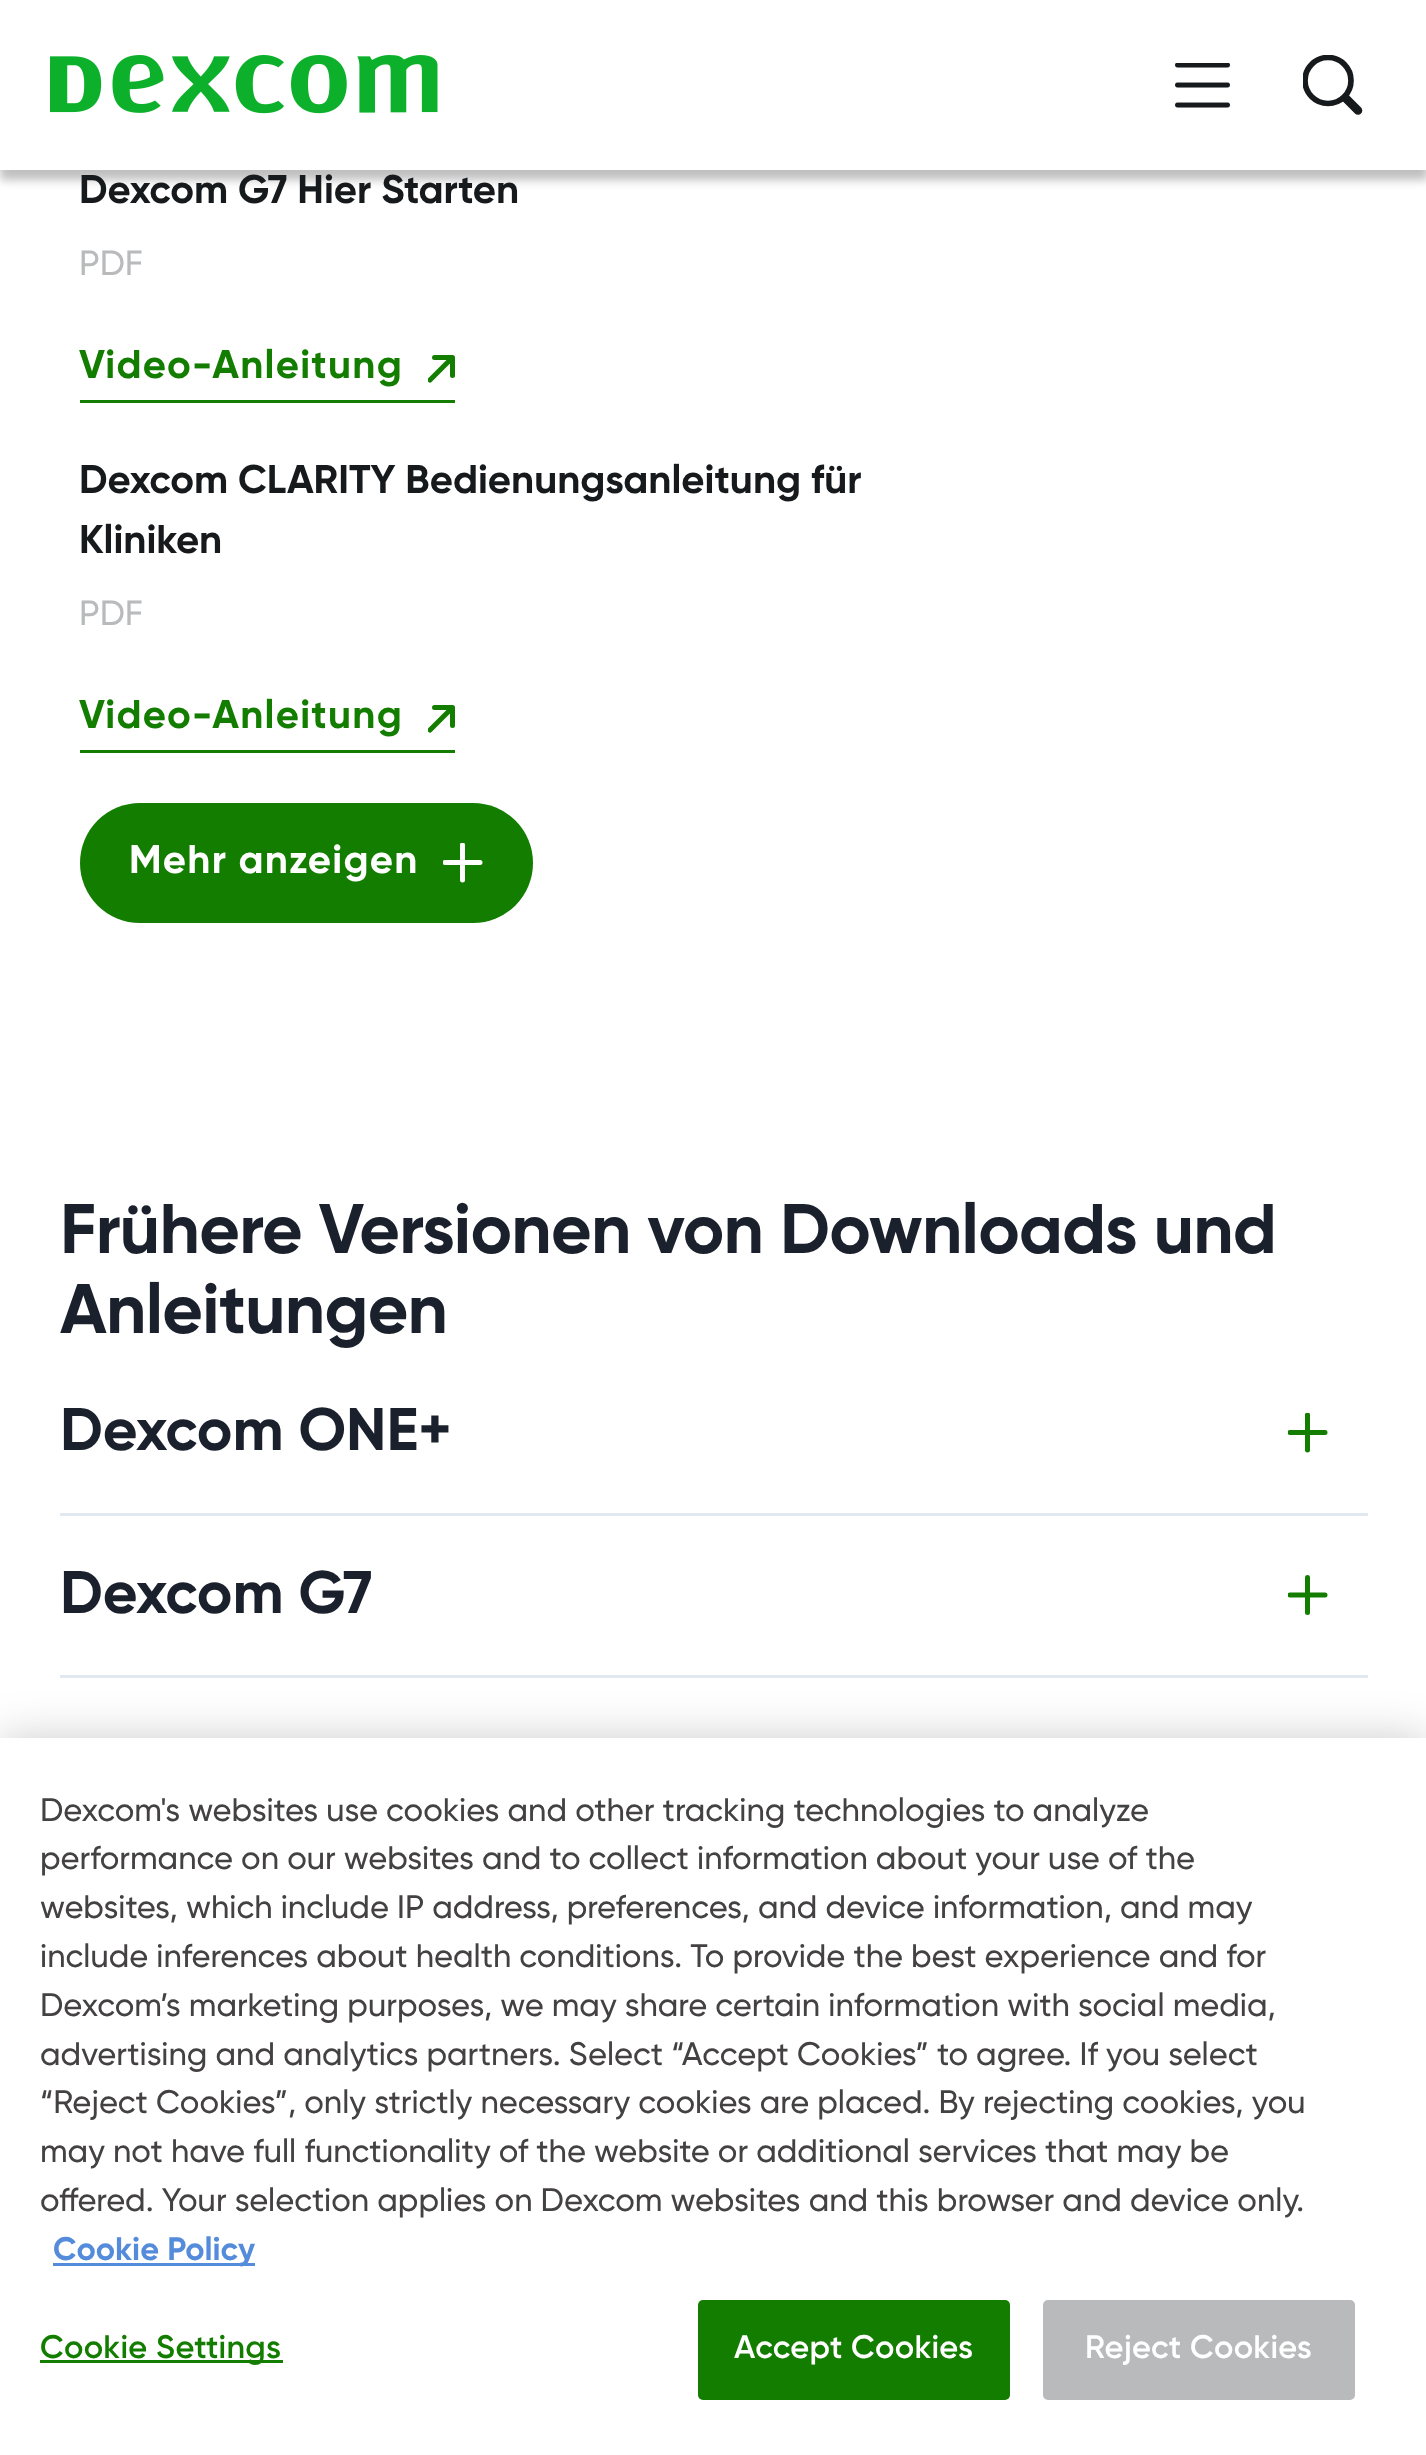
<?xml version="1.0" encoding="UTF-8"?>
<svg xmlns="http://www.w3.org/2000/svg" width="1426" height="2455">
    <defs>
        <filter id="blur1" x="-50%" y="-200%" width="200%" height="500%"><feGaussianBlur stdDeviation="5"/></filter>
        <clipPath id="clip1"><rect x="1303" y="55" width="60" height="60"/></clipPath>
        <clipPath id="clip2"><rect x="428" y="355" width="27" height="28"/></clipPath>
        <clipPath id="clip3"><rect x="428" y="705" width="27" height="28"/></clipPath>
        <clipPath id="clip4"><rect x="443" y="843" width="40" height="40"/></clipPath>
        <clipPath id="clip5"><rect x="1288" y="1413" width="40" height="40"/></clipPath>
        <clipPath id="clip6"><rect x="1288" y="1575" width="40" height="40"/></clipPath>
        <filter id="blur2" x="-50%" y="-200%" width="200%" height="500%"><feGaussianBlur stdDeviation="22.5"/></filter>
    </defs>
    <rect width="100%" height="100%" fill="#FFFFFF"/>
    <rect x="0" y="10" width="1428" height="170" fill="#000000" fill-opacity="0.25" filter="url(#blur1)"/>
    <rect x="0" y="1" width="1426" height="169" fill="#FFFFFF"/>
    <image x="50" y="55" width="388" height="59" href="img_01.png"/>
    <image x="1175" y="63" width="55" height="45" href="img_02.png"/>
    <g clip-path="url(#clip1)">
        <circle cx="1328" cy="80.5" r="23" fill="none" stroke="#161A1D" stroke-width="5.7"/>
    </g>
    <path d="M 1345.5 98 L 1358 110.5" fill="none" stroke="#161A1D" stroke-width="8.6" stroke-linecap="round"/>
    <text x="79" y="203" font-family="Gilroy" font-size="40" font-weight="700" fill="#161A1D">Dexcom G7 Hier Starten</text>
    <text x="79" y="275" font-family="Gilroy" font-size="35" font-weight="500" fill="#B8BABC">PDF</text>
    <rect x="80" y="400" width="375" height="3" fill="#137D00"/>
    <text x="79" y="378" font-family="Gilroy" font-size="40" font-weight="700" letter-spacing="1.25" fill="#137D00">Video-Anleitung</text>
    <g clip-path="url(#clip2)">
        <path d="M 434.5 357.5 H 452.5 V 375.5 M 451.5 358.5 L 430 380" fill="none" stroke="#137D00" stroke-width="5" stroke-linecap="round" stroke-linejoin="round"/>
    </g>
    <text font-family="Gilroy" font-size="40" font-weight="700" fill="#161A1D">
        <tspan x="79" y="493">Dexcom CLARITY Bedienungsanleitung für</tspan>
        <tspan x="79" y="553">Kliniken</tspan>
    </text>
    <text x="79" y="625" font-family="Gilroy" font-size="35" font-weight="500" fill="#B8BABC">PDF</text>
    <rect x="80" y="750" width="375" height="3" fill="#137D00"/>
    <text x="79" y="728" font-family="Gilroy" font-size="40" font-weight="700" letter-spacing="1.25" fill="#137D00">Video-Anleitung</text>
    <g clip-path="url(#clip3)">
        <path d="M 434.5 707.5 H 452.5 V 725.5 M 451.5 708.5 L 430 730" fill="none" stroke="#137D00" stroke-width="5" stroke-linecap="round" stroke-linejoin="round"/>
    </g>
    <rect x="80" y="803" width="453" height="120" rx="60" fill="#137D00"/>
    <text x="129" y="873" font-family="Gilroy" font-size="40" font-weight="700" letter-spacing="1.25" fill="#FFFFFF">Mehr anzeigen</text>
    <g clip-path="url(#clip4)">
        <path d="M 445 862.5 H 480 M 462.5 845 V 880" fill="none" stroke="#FFFFFF" stroke-width="5" stroke-linecap="round"/>
    </g>
    <text font-family="Gilroy" font-size="70" font-weight="700" letter-spacing="-0.7" fill="#1A202C">
        <tspan x="60" y="1253">Frühere Versionen von Downloads und</tspan>
        <tspan x="60" y="1333">Anleitungen</tspan>
    </text>
    <text x="60" y="1450" font-family="Gilroy" font-size="60" font-weight="700" fill="#1A202C">Dexcom ONE+</text>
    <g clip-path="url(#clip5)">
        <path d="M 1290 1432.5 H 1325 M 1307.5 1415 V 1450" fill="none" stroke="#137D00" stroke-width="5" stroke-linecap="round"/>
    </g>
    <rect x="60" y="1513" width="1308" height="3" fill="#E2E8F0"/>
    <text x="60" y="1613" font-family="Gilroy" font-size="60" font-weight="700" fill="#1A202C">Dexcom G7</text>
    <g clip-path="url(#clip6)">
        <path d="M 1290 1595 H 1325 M 1307.5 1577.5 V 1612.5" fill="none" stroke="#137D00" stroke-width="5" stroke-linecap="round"/>
    </g>
    <rect x="60" y="1675" width="1308" height="3" fill="#E2E8F0"/>
    <rect x="0" y="1738" width="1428" height="717" fill="#000000" fill-opacity="0.2" filter="url(#blur2)"/>
    <rect x="0" y="1738" width="1426" height="717" fill="#FFFFFF"/>
    <text font-family="Gilroy" font-size="32.5" font-weight="500" fill="#434141">
        <tspan x="40" y="1821">Dexcom's websites use cookies and other tracking technologies to analyze</tspan>
        <tspan x="40" y="1869">performance on our websites and to collect information about your use of the</tspan>
        <tspan x="40" y="1918">websites, which include IP address, preferences, and device information, and may</tspan>
        <tspan x="40" y="1967">include inferences about health conditions. To provide the best experience and for</tspan>
        <tspan x="40" y="2016">Dexcom’s marketing purposes, we may share certain information with social media,</tspan>
        <tspan x="40" y="2065">advertising and analytics partners. Select “Accept Cookies” to agree. If you select</tspan>
        <tspan x="40" y="2113">“Reject Cookies”, only strictly necessary cookies are placed. By rejecting cookies, you</tspan>
        <tspan x="40" y="2162">may not have full functionality of the website or additional services that may be</tspan>
        <tspan x="40" y="2211">offered. Your selection applies on Dexcom websites and this browser and device only.</tspan>
    </text>
    <rect x="53" y="2263" width="202" height="3" fill="#558BDB"/>
    <text x="53" y="2260" font-family="Gilroy" font-size="32.5" font-weight="700" fill="#558BDB">Cookie Policy</text>
    <rect x="40" y="2360" width="243" height="3" fill="#137D00"/>
    <text x="40" y="2358" font-family="Gilroy" font-size="32.5" font-weight="600" letter-spacing="0.3" fill="#137D00">Cookie Settings</text>
    <rect x="698" y="2300" width="312" height="100" rx="5" fill="#137D00"/>
    <text x="734" y="2358" font-family="Gilroy" font-size="32.5" font-weight="600" letter-spacing="0.3" fill="#FFFFFF">Accept Cookies</text>
    <rect x="1043" y="2300" width="312" height="100" rx="5" fill="#B8BABC"/>
    <text x="1085" y="2358" font-family="Gilroy" font-size="32.5" font-weight="600" letter-spacing="0.3" fill="#FFFFFF">Reject Cookies</text>
</svg>
